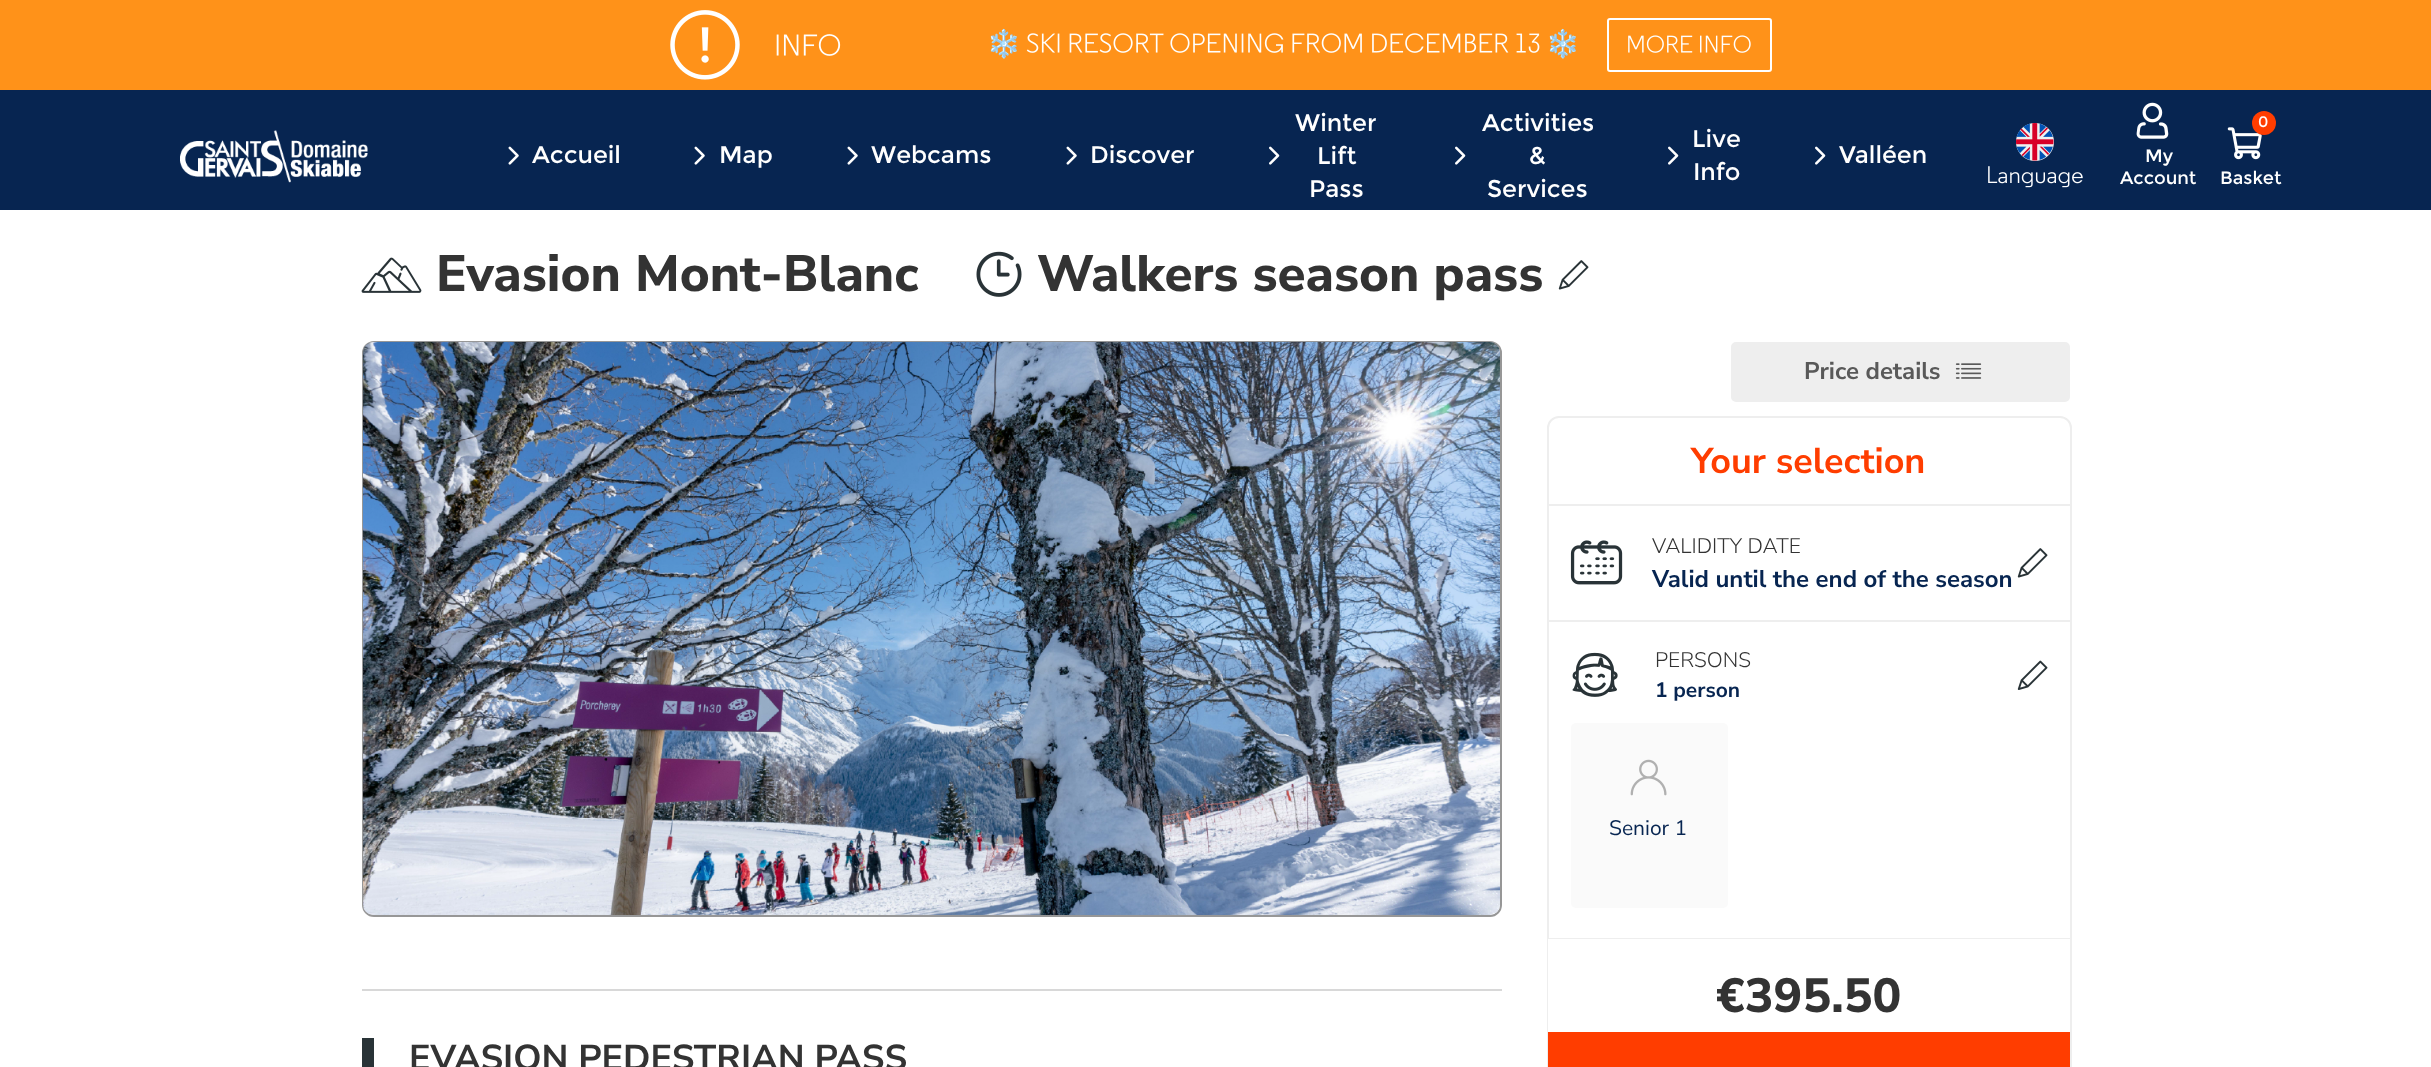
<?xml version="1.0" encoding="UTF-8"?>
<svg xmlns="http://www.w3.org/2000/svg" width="2431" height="1067">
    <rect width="100%" height="100%" fill="#FFFFFF"/>
    <rect x="0" y="0" width="2431" height="90" fill="#FF9219"/>
    <image x="670" y="10" width="70" height="70" href="img_01.png"/>
    <image x="776" y="34" width="65" height="22" href="img_02.png"/>
    <text x="987" y="53" font-family="Noto Color Emoji" font-size="27" fill="#FFFFFF">❄️</text>
    <image x="1026" y="33" width="514" height="20" href="img_03.png"/>
    <text x="1546" y="53" font-family="Noto Color Emoji" font-size="27" fill="#FFFFFF">❄️</text>
    <rect x="1608" y="19" width="163" height="52" rx="2" fill="none" stroke="#FFFFFF" stroke-width="2"/>
    <image x="1628" y="35" width="123" height="18" href="img_04.png"/>
    <rect x="0" y="90" width="2431" height="120" fill="#072551"/>
    <image x="180" y="130" width="188" height="53" href="img_05.png"/>
    <image x="508" y="146" width="11" height="19" href="img_06.png"/>
    <text x="532" y="163" font-family="Montserrat" font-size="24" fill="#FFFFFF">Accueil</text>
    <image x="694" y="146" width="11" height="19" href="img_06.png"/>
    <text x="719" y="163" font-family="Montserrat" font-size="24" fill="#FFFFFF">Map</text>
    <image x="847" y="146" width="11" height="19" href="img_06.png"/>
    <text x="871" y="163" font-family="Montserrat" font-size="24" fill="#FFFFFF">Webcams</text>
    <image x="1066" y="146" width="11" height="19" href="img_06.png"/>
    <text x="1090" y="163" font-family="Montserrat" font-size="24" fill="#FFFFFF">Discover</text>
    <text x="1295" y="131" font-family="Montserrat" font-size="24" fill="#FFFFFF">Winter</text>
    <image x="1269" y="146" width="11" height="19" href="img_07.png"/>
    <text x="1317" y="164" font-family="Montserrat" font-size="24" fill="#FFFFFF">Lift</text>
    <text x="1309" y="197" font-family="Montserrat" font-size="24" fill="#FFFFFF">Pass</text>
    <text x="1482" y="131" font-family="Montserrat" font-size="24" fill="#FFFFFF">Activities</text>
    <image x="1455" y="146" width="11" height="19" href="img_07.png"/>
    <text x="1529" y="164" font-family="Montserrat" font-size="24" fill="#FFFFFF">&amp;</text>
    <text x="1487" y="197" font-family="Montserrat" font-size="24" fill="#FFFFFF">Services</text>
    <text x="1692" y="147" font-family="Montserrat" font-size="24" fill="#FFFFFF">Live</text>
    <image x="1668" y="146" width="11" height="19" href="img_07.png"/>
    <text x="1693" y="180" font-family="Montserrat" font-size="24" fill="#FFFFFF">Info</text>
    <image x="1815" y="146" width="11" height="19" href="img_07.png"/>
    <text x="1839" y="163" font-family="Montserrat" font-size="24" fill="#FFFFFF">Valléen</text>
    <image x="2016" y="123" width="38" height="38" href="img_08.png"/>
    <image x="1988" y="166" width="95" height="22" href="img_09.png"/>
    <image x="2136" y="102" width="33" height="37" href="img_10.png"/>
    <text x="2145" y="162" font-family="Montserrat" font-size="18" fill="#FFFFFF">My</text>
    <text x="2120" y="184" font-family="Montserrat" font-size="18" fill="#FFFFFF">Account</text>
    <image x="2227" y="127" width="35" height="33" href="img_11.png"/>
    <circle cx="2264" cy="123" r="12" fill="#FF3D00"/>
    <text x="2258" y="127" font-family="Montserrat" font-size="15" fill="#FFFFFF">0</text>
    <text x="2220" y="184" font-family="Montserrat" font-size="18" fill="#FFFFFF">Basket</text>
    <image x="361" y="257" width="61" height="36" href="img_12.png"/>
    <text x="436" y="291" font-family="Nunito Sans" font-size="51" font-weight="800" fill="#333333">Evasion Mont-Blanc</text>
    <image x="976" y="251" width="46" height="46" href="img_13.png"/>
    <text x="1037" y="291" font-family="Nunito Sans" font-size="51" font-weight="800" fill="#333333">Walkers season pass</text>
    <image x="1558" y="260" width="31" height="30" href="img_14.png"/>
    <rect x="363" y="342" width="1138" height="574" rx="11" fill="none" stroke="#979797" stroke-width="2"/>
    <image x="363" y="342" width="1137" height="573" href="img_15.png"/>
    <rect x="1548" y="417" width="523" height="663" rx="11" fill="none" stroke="#EEEEEE" stroke-width="2"/>
    <rect x="1732" y="343" width="337" height="58" rx="4" fill="#EEEEEE" stroke="#EEEEEE" stroke-width="2"/>
    <text x="1804" y="379" font-family="Nunito Sans" font-size="24" font-weight="700" fill="#595959">Price details</text>
    <image x="1955" y="363" width="27" height="16" href="img_16.png"/>
    <rect x="1548" y="504" width="522" height="2" fill="#EEEEEE"/>
    <text x="1691" y="473" font-family="Nunito Sans" font-size="36" font-weight="700" fill="#FF3D00">Your selection</text>
    <rect x="1548" y="620" width="522" height="2" fill="#EEEEEE"/>
    <image x="1570" y="540" width="53" height="45" href="img_17.png"/>
    <text x="1652" y="553" font-family="Nunito Sans" font-size="21" font-weight="300" fill="#333333">VALIDITY DATE</text>
    <text x="1652" y="587" font-family="Nunito Sans" font-size="24" font-weight="700" fill="#072551">Valid until the end of the season</text>
    <image x="2017" y="548" width="31" height="30" href="img_14.png"/>
    <rect x="1548" y="938" width="522" height="1" fill="#EEEEEE"/>
    <image x="1572" y="652" width="46" height="45" href="img_18.png"/>
    <text x="1655" y="667" font-family="Nunito Sans" font-size="21" font-weight="300" fill="#333333">PERSONS</text>
    <text x="1655" y="697" font-family="Nunito Sans" font-size="21" font-weight="700" fill="#072551">1 person</text>
    <image x="2017" y="660" width="31" height="30" href="img_19.png"/>
    <rect x="1571" y="723" width="157" height="185" rx="5" fill="#FAFAFA"/>
    <image x="1630" y="759" width="37" height="37" href="img_20.png"/>
    <text x="1609" y="835" font-family="Nunito Sans" font-size="21" fill="#072551">Senior 1</text>
    <rect x="1548" y="939" width="1" height="93" fill="#FFFFFF"/>
    <text x="1716" y="1012" font-family="Nunito Sans" font-size="48" font-weight="800" fill="#333333">€395.50</text>
    <rect x="1548" y="1032" width="522" height="35" fill="#FF3D00"/>
    <rect x="362" y="989" width="1140" height="2" fill="#D8D8D8"/>
    <rect x="362" y="1038" width="12" height="29" fill="#293337"/>
    <text x="409" y="1070" font-family="Nunito Sans" font-size="36" font-weight="700" fill="#333333">EVASION PEDESTRIAN PASS</text>
</svg>
